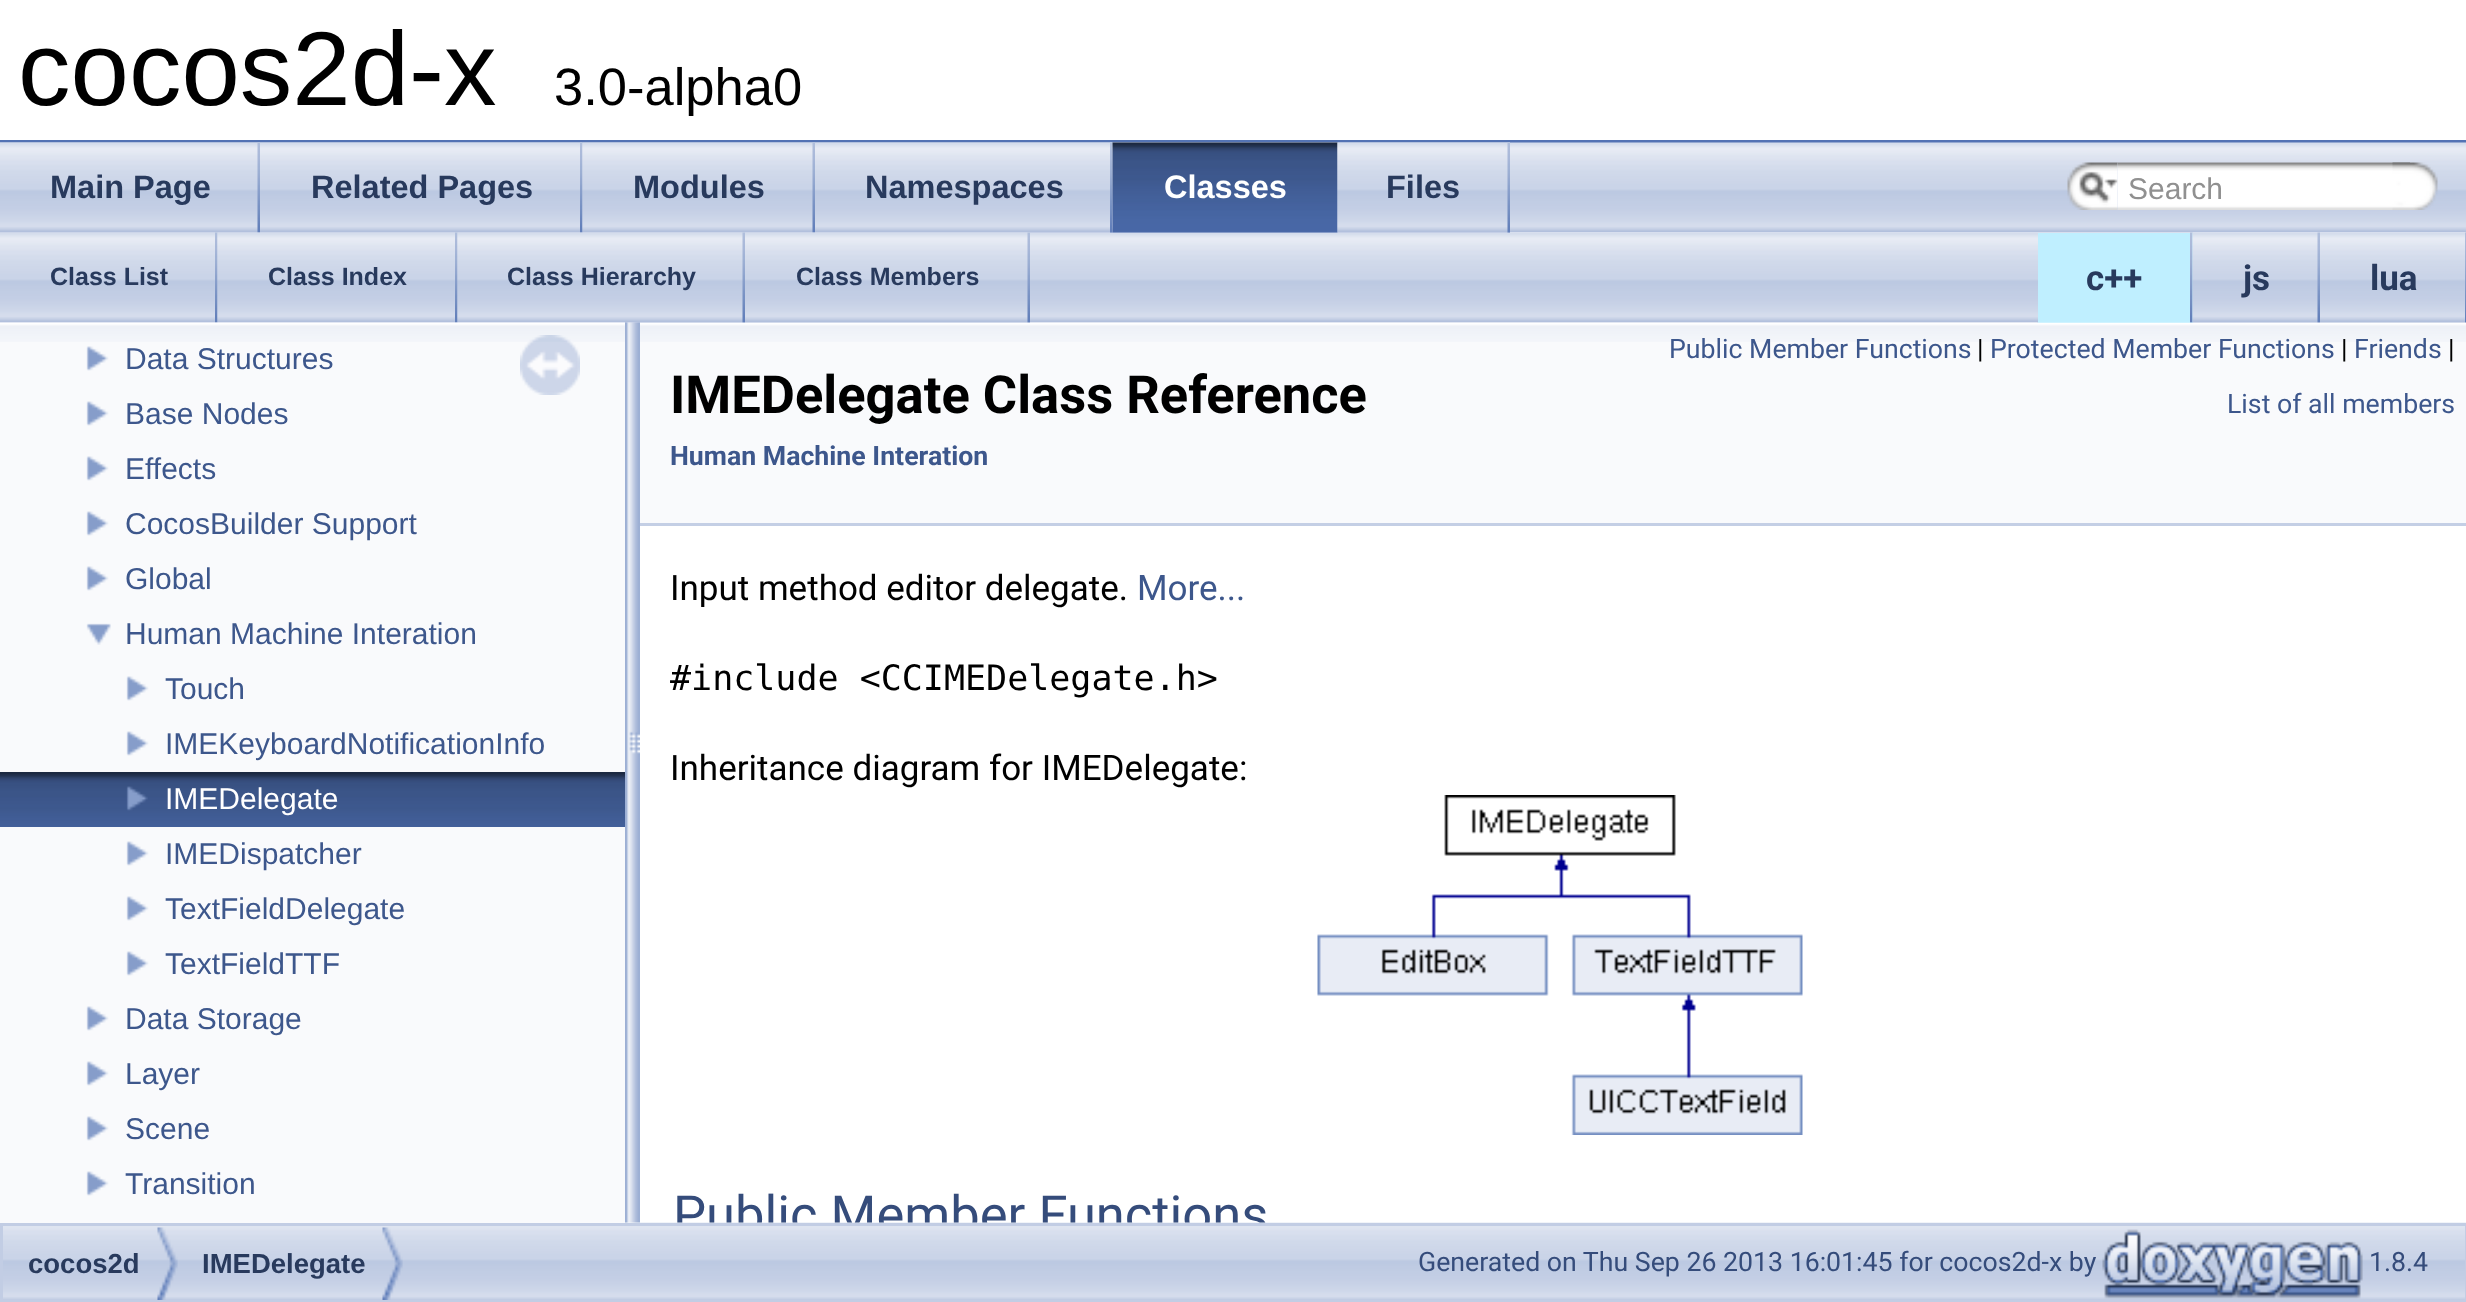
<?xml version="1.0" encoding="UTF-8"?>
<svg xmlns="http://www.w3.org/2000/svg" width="2466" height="1302">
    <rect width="100%" height="100%" fill="#FFFFFF"/>
    <rect x="0" y="140" width="2466" height="3" fill="#5373B4"/>
    <text x="18" y="105" font-family="Liberation Sans" font-size="105" fill="#000000">cocos2d-x</text>
    <text x="554" y="105" font-family="Liberation Sans" font-size="52.5" fill="#000000">3.0-alpha0</text>
    <image x="0" y="142" width="2466" height="91" href="img_01.png"/>
    <image x="0" y="142" width="260" height="91" href="img_02.png"/>
    <image x="257" y="143" width="3" height="90" href="img_03.png"/>
    <text x="50" y="198" font-family="Liberation Sans" font-size="32.5" font-weight="700" fill="#283A5D">Main Page</text>
    <image x="260" y="142" width="323" height="91" href="img_04.png"/>
    <image x="580" y="143" width="3" height="90" href="img_05.png"/>
    <text x="311" y="198" font-family="Liberation Sans" font-size="32.5" font-weight="700" fill="#283A5D">Related Pages</text>
    <image x="582" y="142" width="233" height="91" href="img_06.png"/>
    <image x="812" y="143" width="3" height="90" href="img_03.png"/>
    <text x="633" y="198" font-family="Liberation Sans" font-size="32.5" font-weight="700" fill="#283A5D">Modules</text>
    <image x="815" y="142" width="298" height="91" href="img_07.png"/>
    <image x="1110" y="143" width="3" height="90" href="img_05.png"/>
    <text x="865" y="198" font-family="Liberation Sans" font-size="32.5" font-weight="700" fill="#283A5D">Namespaces</text>
    <image x="1112" y="142" width="226" height="91" href="img_08.png"/>
    <image x="1112" y="142" width="226" height="91" href="img_09.png"/>
    <text x="1164" y="198" font-family="Liberation Sans" font-size="32.5" font-weight="700" fill="#FFFFFF">Classes</text>
    <image x="1337" y="142" width="173" height="91" href="img_10.png"/>
    <image x="1507" y="143" width="3" height="90" href="img_03.png"/>
    <text x="1386" y="198" font-family="Liberation Sans" font-size="32.5" font-weight="700" fill="#283A5D">Files</text>
    <image x="2067" y="162" width="51" height="48" href="img_11.png"/>
    <image x="2079" y="171" width="39" height="32" href="img_12.png"/>
    <image x="2117" y="162" width="293" height="48" href="img_13.png"/>
    <text x="2128" y="199" font-family="Liberation Sans" font-size="30" fill="#909090">Search</text>
    <image x="2392" y="162" width="46" height="48" href="img_14.png"/>
    <image x="0" y="233" width="2465" height="90" href="img_15.png"/>
    <image x="0" y="232" width="218" height="91" href="img_16.png"/>
    <image x="215" y="232" width="3" height="91" href="img_17.png"/>
    <text x="50" y="285" font-family="Liberation Sans" font-size="25" font-weight="700" fill="#283A5D">Class List</text>
    <image x="217" y="232" width="241" height="91" href="img_18.png"/>
    <image x="455" y="232" width="3" height="91" href="img_17.png"/>
    <text x="268" y="285" font-family="Liberation Sans" font-size="25" font-weight="700" fill="#283A5D">Class Index</text>
    <image x="457" y="232" width="288" height="91" href="img_19.png"/>
    <image x="742" y="232" width="3" height="91" href="img_20.png"/>
    <text x="507" y="285" font-family="Liberation Sans" font-size="25" font-weight="700" fill="#283A5D">Class Hierarchy</text>
    <image x="745" y="232" width="285" height="91" href="img_21.png"/>
    <image x="1027" y="232" width="3" height="91" href="img_20.png"/>
    <text x="796" y="285" font-family="Liberation Sans" font-size="25" font-weight="700" fill="#283A5D">Class Members</text>
    <image x="2037" y="322" width="1" height="1" href="img_22.png"/>
    <rect x="2038" y="233" width="155" height="90" fill="#BFEFFF"/>
    <image x="2190" y="232" width="3" height="91" href="img_23.png"/>
    <text x="2086" y="290" font-family="Roboto" font-size="35" font-weight="700" fill="#283A5D">c++</text>
    <image x="2192" y="233" width="128" height="90" href="img_24.png"/>
    <image x="2317" y="232" width="3" height="91" href="img_25.png"/>
    <text x="2243" y="290" font-family="Roboto" font-size="35" font-weight="700" fill="#283A5D">js</text>
    <rect x="2320" y="322" width="146" height="1" fill="#C4CFE5"/>
    <image x="2465" y="232" width="1" height="91" href="img_26.png"/>
    <text x="2370" y="290" font-family="Roboto" font-size="35" font-weight="700" fill="#283A5D">lua</text>
    <text x="673" y="1233" font-family="Roboto" font-size="52.5" fill="#354C7B">Public Member Functions</text>
    <image x="3" y="1222" width="2463" height="78" href="img_36.png"/>
    <rect x="0" y="342" width="625" height="881" fill="#F9FAFC"/>
    <image x="0" y="322" width="625" height="20" href="img_27.png"/>
    <image x="86" y="346" width="23" height="25" href="img_28.png"/>
    <text x="125" y="369" font-family="Liberation Sans" font-size="30" fill="#3D578C">Data Structures</text>
    <image x="86" y="401" width="23" height="25" href="img_28.png"/>
    <text x="125" y="424" font-family="Liberation Sans" font-size="30" fill="#3D578C">Base Nodes</text>
    <image x="86" y="456" width="23" height="25" href="img_28.png"/>
    <text x="125" y="479" font-family="Liberation Sans" font-size="30" fill="#3D578C">Effects</text>
    <image x="86" y="511" width="23" height="25" href="img_28.png"/>
    <text x="125" y="534" font-family="Liberation Sans" font-size="30" fill="#3D578C">CocosBuilder Support</text>
    <image x="86" y="566" width="23" height="25" href="img_28.png"/>
    <text x="125" y="589" font-family="Liberation Sans" font-size="30" fill="#3D578C">Global</text>
    <image x="86" y="623" width="25" height="22" href="img_29.png"/>
    <text x="125" y="644" font-family="Liberation Sans" font-size="30" fill="#3D578C">Human Machine Interation</text>
    <image x="126" y="676" width="23" height="25" href="img_28.png"/>
    <text x="165" y="699" font-family="Liberation Sans" font-size="30" fill="#3D578C">Touch</text>
    <image x="126" y="731" width="23" height="25" href="img_28.png"/>
    <text x="165" y="754" font-family="Liberation Sans" font-size="30" fill="#3D578C">IMEKeyboardNotificationInfo</text>
    <image x="0" y="772" width="625" height="55" href="img_30.png"/>
    <image x="126" y="786" width="22" height="25" href="img_31.png"/>
    <text x="165" y="809" font-family="Liberation Sans" font-size="30" fill="#FFFFFF">IMEDelegate</text>
    <image x="126" y="841" width="23" height="25" href="img_28.png"/>
    <text x="165" y="864" font-family="Liberation Sans" font-size="30" fill="#3D578C">IMEDispatcher</text>
    <image x="126" y="896" width="23" height="25" href="img_28.png"/>
    <text x="165" y="919" font-family="Liberation Sans" font-size="30" fill="#3D578C">TextFieldDelegate</text>
    <image x="126" y="951" width="23" height="25" href="img_28.png"/>
    <text x="165" y="974" font-family="Liberation Sans" font-size="30" fill="#3D578C">TextFieldTTF</text>
    <image x="86" y="1006" width="23" height="25" href="img_28.png"/>
    <text x="125" y="1029" font-family="Liberation Sans" font-size="30" fill="#3D578C">Data Storage</text>
    <image x="86" y="1061" width="23" height="25" href="img_28.png"/>
    <text x="125" y="1084" font-family="Liberation Sans" font-size="30" fill="#3D578C">Layer</text>
    <image x="86" y="1116" width="23" height="25" href="img_28.png"/>
    <text x="125" y="1139" font-family="Liberation Sans" font-size="30" fill="#3D578C">Scene</text>
    <image x="86" y="1171" width="23" height="25" href="img_28.png"/>
    <text x="125" y="1194" font-family="Liberation Sans" font-size="30" fill="#3D578C">Transition</text>
    <image x="520" y="335" width="60" height="60" href="img_32.png"/>
    <image x="625" y="322" width="15" height="901" href="img_33.png"/>
    <rect x="640" y="342" width="1826" height="181" fill="#F9FAFC"/>
    <image x="640" y="322" width="1826" height="20" href="img_34.png"/>
    <rect x="640" y="523" width="1826" height="3" fill="#C4CFE5"/>
    <text x="670" y="413" font-family="Roboto" font-size="52.5" font-weight="700" fill="#000000">IMEDelegate Class Reference</text>
    <text x="670" y="465" font-family="Roboto" font-size="26.7" font-weight="700" fill="#3D578C">Human Machine Interation</text>
    <text x="1669" y="358" font-family="Roboto" font-size="26.7" fill="#3D578C">Public Member Functions</text>
    <text x="1977" y="358" font-family="Roboto" font-size="26.7" fill="#000000">|</text>
    <text x="1990" y="358" font-family="Roboto" font-size="26.7" fill="#3D578C">Protected Member Functions</text>
    <text x="2341" y="358" font-family="Roboto" font-size="26.7" fill="#000000">|</text>
    <text x="2354" y="358" font-family="Roboto" font-size="26.7" fill="#3D578C">Friends</text>
    <text x="2448" y="358" font-family="Roboto" font-size="26.7" fill="#000000">|</text>
    <text x="2227" y="413" font-family="Roboto" font-size="26.7" fill="#3D578C">List of all members</text>
    <text x="670" y="600" font-family="Roboto" font-size="35" fill="#000000">Input method editor delegate.</text>
    <text x="1137" y="600" font-family="Roboto" font-size="35" fill="#3D578C">More...</text>
    <text x="670" y="690" font-family="DejaVu Sans Mono" font-size="35" fill="#000000">#include &lt;CCIMEDelegate.h&gt;</text>
    <text x="670" y="780" font-family="Roboto" font-size="35" fill="#000000">Inheritance diagram for IMEDelegate:</text>
    <image x="1317" y="795" width="486" height="340" href="img_35.png"/>
    <rect x="1.5" y="1224.5" width="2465" height="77" fill="none" stroke="#C2CDE4" stroke-width="3"/>
    <image x="157" y="1227" width="21" height="73" href="img_37.png"/>
    <text x="28" y="1273" font-family="Liberation Sans" font-size="27.5" font-weight="700" fill="#283A5D">cocos2d</text>
    <image x="382" y="1227" width="21" height="73" href="img_38.png"/>
    <text x="202" y="1273" font-family="Liberation Sans" font-size="27.5" font-weight="700" fill="#283A5D">IMEDelegate</text>
    <text x="1418" y="1271" font-family="Roboto" font-size="26.7" fill="#354C7B">Generated on Thu Sep 26 2013 16:01:45 for cocos2d-x by</text>
    <image x="2102" y="1229" width="261" height="70" href="img_39.png"/>
    <text x="2369" y="1271" font-family="Roboto" font-size="26.7" fill="#354C7B">1.8.4</text>
</svg>
